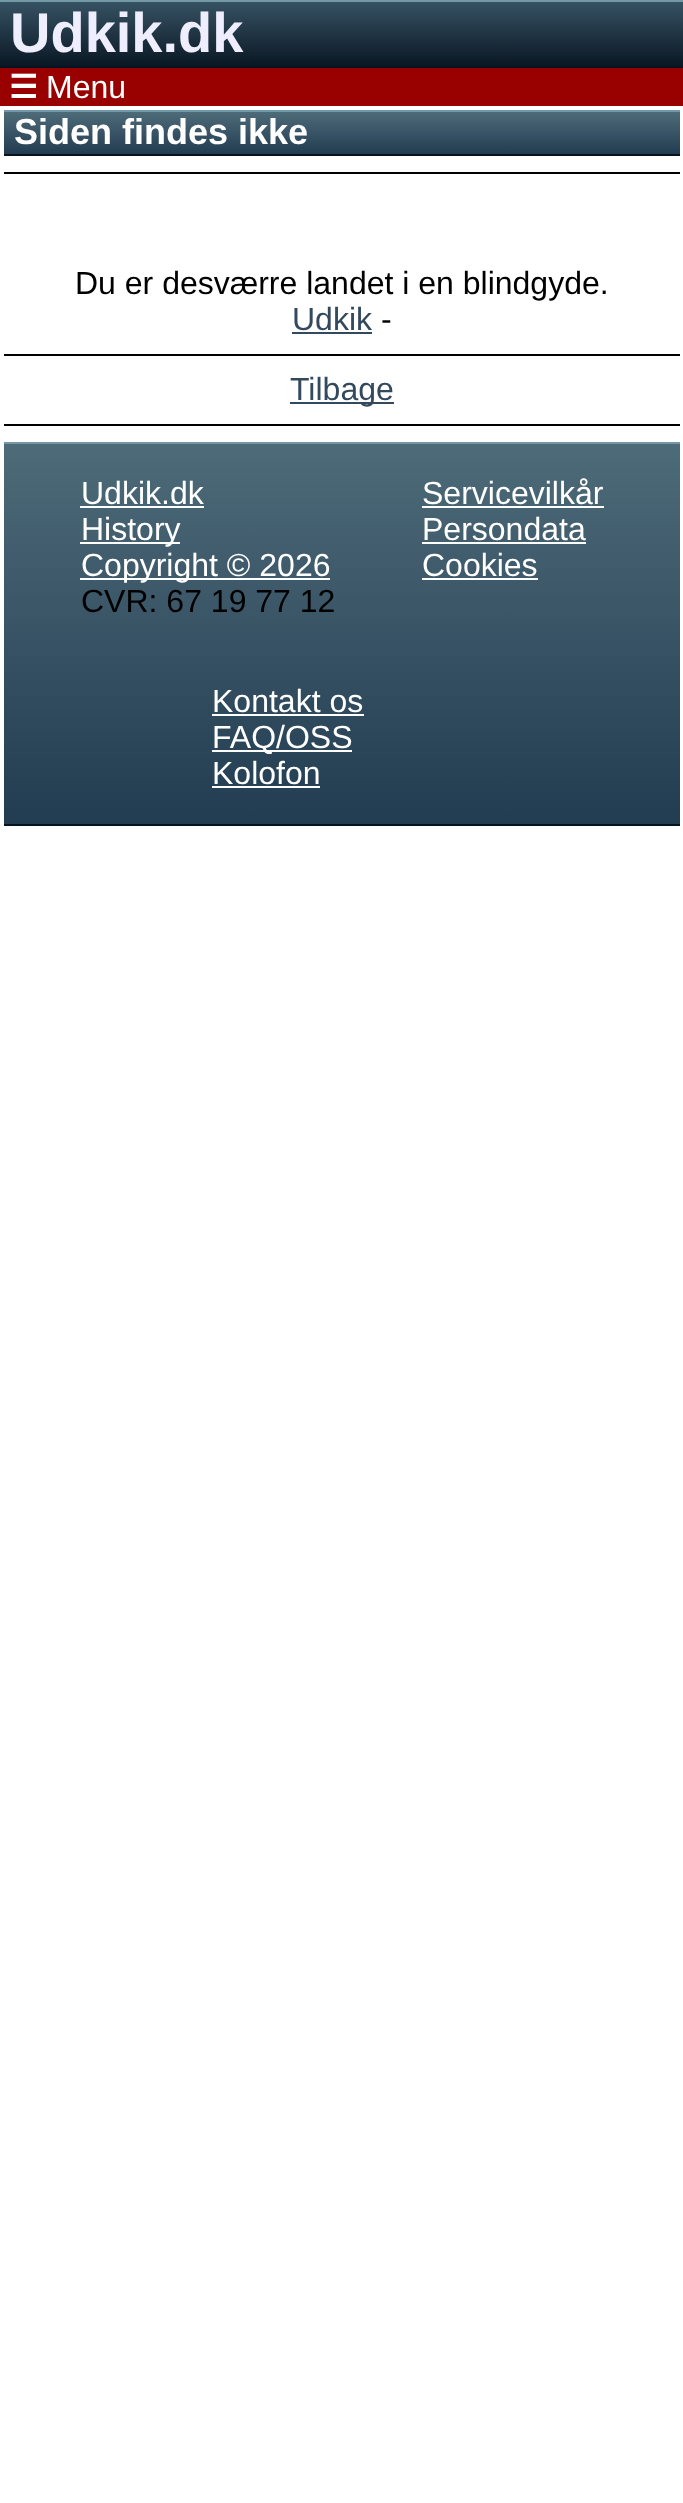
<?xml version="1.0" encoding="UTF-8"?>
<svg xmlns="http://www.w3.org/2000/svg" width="683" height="2503">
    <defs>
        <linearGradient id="g1" gradientUnits="userSpaceOnUse" x1="0" y1="66" x2="0" y2="2"><stop offset="0" stop-color="#0A1724"/><stop offset="1" stop-color="#365263"/></linearGradient>
        <linearGradient id="g2" gradientUnits="userSpaceOnUse" x1="4" y1="154" x2="4" y2="112"><stop offset="0" stop-color="#223C51"/><stop offset="1" stop-color="#4E6B79"/></linearGradient>
        <linearGradient id="g3" gradientUnits="userSpaceOnUse" x1="4" y1="824" x2="4" y2="444"><stop offset="0" stop-color="#223C51"/><stop offset="1" stop-color="#4E6B79"/></linearGradient>
    </defs>
    <rect width="100%" height="100%" fill="#FFFFFF"/>
    <rect x="0" y="2" width="683" height="64" fill="url(#g1)"/>
    <rect x="0" y="0" width="683" height="2" fill="#7598A8"/>
    <rect x="0" y="66" width="683" height="2" fill="#071321"/>
    <text x="10" y="52" font-family="Liberation Sans" font-size="56" font-weight="700" fill="#EEEEFF">Udkik.dk</text>
    <rect x="0" y="68" width="683" height="38" fill="#990000"/>
    <text x="9" y="98" font-family="DejaVu Sans" font-size="32" font-weight="700" fill="#FFFFFF">☰</text>
    <text x="46" y="98" font-family="Liberation Sans" font-size="32" fill="#FFFFFF">Menu</text>
    <rect x="4" y="112" width="676" height="42" fill="url(#g2)"/>
    <rect x="4" y="110" width="676" height="2" fill="#7598A8"/>
    <rect x="4" y="154" width="676" height="2" fill="#071321"/>
    <text x="14" y="144" font-family="Liberation Sans" font-size="36" font-weight="700" fill="#FFFFFF">Siden findes ikke</text>
    <rect x="4" y="172" width="676" height="2" fill="#000000"/>
    <text x="75" y="294" font-family="Liberation Sans" font-size="32" fill="#000000">Du er desværre landet i en blindgyde.</text>
    <text x="292" y="330" font-family="Liberation Sans" font-size="32" fill="#33495D">Udkik</text>
    <rect x="292" y="332" width="80" height="2" fill="#33495D"/>
    <text x="381" y="330" font-family="Liberation Sans" font-size="32" fill="#000000">-</text>
    <rect x="4" y="354" width="676" height="2" fill="#000000"/>
    <rect x="290" y="402" width="104" height="2" fill="#33495D"/>
    <text x="290" y="400" font-family="Liberation Sans" font-size="32" fill="#33495D">Tilbage</text>
    <rect x="4" y="424" width="676" height="2" fill="#000000"/>
    <rect x="4" y="444" width="676" height="380" fill="url(#g3)"/>
    <rect x="4" y="442" width="676" height="2" fill="#7598A8"/>
    <rect x="4" y="824" width="676" height="2" fill="#071321"/>
    <text x="81" y="504" font-family="Liberation Sans" font-size="32" fill="#FFFFFF">Udkik.dk</text>
    <rect x="80" y="506" width="124" height="2" fill="#FFFFFF"/>
    <rect x="80" y="542" width="100" height="2" fill="#FFFFFF"/>
    <text x="81" y="540" font-family="Liberation Sans" font-size="32" fill="#FFFFFF">History</text>
    <rect x="80" y="578" width="250" height="2" fill="#FFFFFF"/>
    <text x="81" y="576" font-family="Liberation Sans" font-size="32" fill="#FFFFFF">Copyright © 2026</text>
    <text x="81" y="612" font-family="Liberation Sans" font-size="32" fill="#000000">CVR: 67 19 77 12</text>
    <text x="422" y="504" font-family="Liberation Sans" font-size="32" fill="#FFFFFF">Servicevilkår</text>
    <rect x="422" y="506" width="182" height="2" fill="#FFFFFF"/>
    <text x="422" y="540" font-family="Liberation Sans" font-size="32" fill="#FFFFFF">Persondata</text>
    <rect x="422" y="542" width="164" height="2" fill="#FFFFFF"/>
    <text x="422" y="576" font-family="Liberation Sans" font-size="32" fill="#FFFFFF">Cookies</text>
    <rect x="422" y="578" width="116" height="2" fill="#FFFFFF"/>
    <text x="212" y="712" font-family="Liberation Sans" font-size="32" fill="#FFFFFF">Kontakt os</text>
    <rect x="212" y="714" width="152" height="2" fill="#FFFFFF"/>
    <rect x="212" y="750" width="140" height="2" fill="#FFFFFF"/>
    <text font-family="Liberation Sans" font-size="32" fill="#FFFFFF">
        <tspan x="212" y="748">FAQ/OSS</tspan>
        <tspan x="212" y="784">Kolofon</tspan>
    </text>
    <rect x="212" y="786" width="108" height="2" fill="#FFFFFF"/>
</svg>
